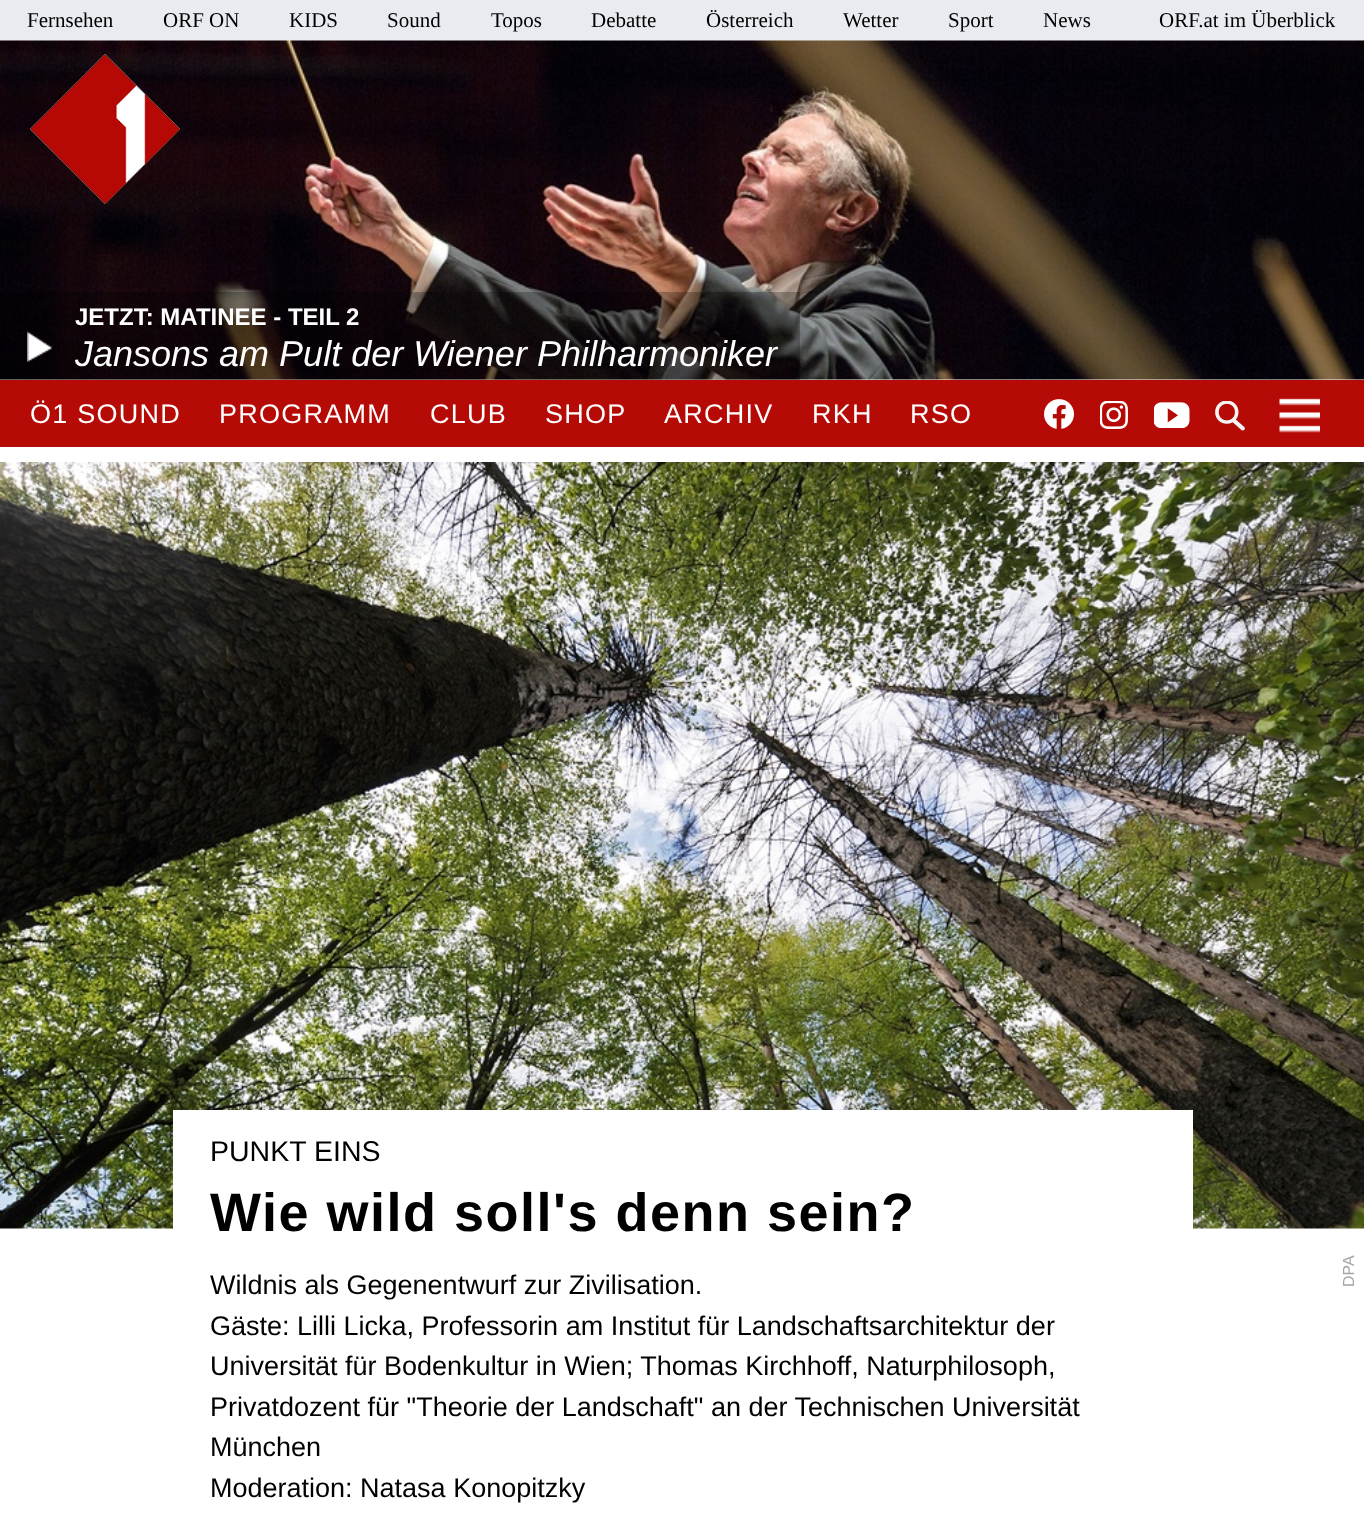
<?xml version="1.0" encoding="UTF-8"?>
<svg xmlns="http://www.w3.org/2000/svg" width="1364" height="1523">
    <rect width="100%" height="100%" fill="#FFFFFF"/>
    <rect x="0" y="0" width="1364" height="41" fill="#E9EBF0"/>
    <text x="27" y="27" font-family="Liberation Serif" font-size="21" fill="#000000">Fernsehen</text>
    <text x="163" y="27" font-family="Liberation Serif" font-size="21" fill="#000000">ORF ON</text>
    <text x="289" y="27" font-family="Liberation Serif" font-size="21" fill="#000000">KIDS</text>
    <text x="387" y="27" font-family="Liberation Serif" font-size="21" fill="#000000">Sound</text>
    <text x="491" y="27" font-family="Liberation Serif" font-size="21" fill="#000000">Topos</text>
    <text x="591" y="27" font-family="Liberation Serif" font-size="21" fill="#000000">Debatte</text>
    <text x="706" y="27" font-family="Liberation Serif" font-size="21" fill="#000000">Österreich</text>
    <text x="843" y="27" font-family="Liberation Serif" font-size="21" fill="#000000">Wetter</text>
    <text x="948" y="27" font-family="Liberation Serif" font-size="21" fill="#000000">Sport</text>
    <text x="1043" y="27" font-family="Liberation Serif" font-size="21" fill="#000000">News</text>
    <text x="1159" y="27" font-family="Liberation Serif" font-size="21" fill="#000000">ORF.at im Überblick</text>
    <image x="0" y="40" width="1364" height="340" href="img_02.png"/>
    <image x="30" y="54" width="150" height="150" href="img_01.png"/>
    <rect x="0" y="292" width="800" height="88" fill="#000000" fill-opacity="0.25"/>
    <text x="75" y="325" font-family="Liberation Sans" font-size="24" font-weight="700" fill="#FFFFFF">JETZT: MATINEE - TEIL 2</text>
    <image x="27" y="331" width="26" height="31" href="img_03.png"/>
    <text x="75" y="366" font-family="Liberation Sans" font-size="36" font-style="italic" fill="#FFFFFF">Jansons am Pult der Wiener Philharmoniker</text>
    <rect x="0" y="380" width="1364" height="67" fill="#B60A06"/>
    <text x="30" y="423" font-family="Liberation Sans" font-size="27" letter-spacing="1.25" fill="#FFFFFF">Ö1 SOUND</text>
    <text x="219" y="423" font-family="Liberation Sans" font-size="27" letter-spacing="1.25" fill="#FFFFFF">PROGRAMM</text>
    <text x="430" y="423" font-family="Liberation Sans" font-size="27" letter-spacing="1.25" fill="#FFFFFF">CLUB</text>
    <text x="545" y="423" font-family="Liberation Sans" font-size="27" letter-spacing="1.25" fill="#FFFFFF">SHOP</text>
    <text x="664" y="423" font-family="Liberation Sans" font-size="27" letter-spacing="1.25" fill="#FFFFFF">ARCHIV</text>
    <text x="812" y="423" font-family="Liberation Sans" font-size="27" letter-spacing="1.25" fill="#FFFFFF">RKH</text>
    <text x="910" y="423" font-family="Liberation Sans" font-size="27" letter-spacing="1.25" fill="#FFFFFF">RSO</text>
    <image x="1044" y="399" width="30" height="30" href="img_04.png"/>
    <image x="1100" y="401" width="28" height="28" href="img_05.png"/>
    <image x="1154" y="402" width="36" height="26" href="img_06.png"/>
    <image x="1215" y="401" width="30" height="30" href="img_07.png"/>
    <image x="1279" y="398" width="41" height="35" href="img_08.png"/>
    <image x="0" y="462" width="1364" height="767" href="img_09.png"/>
    <rect x="173" y="1110" width="1020" height="119" fill="#FFFFFF"/>
    <text x="210" y="1161" font-family="Liberation Sans" font-size="28.5" fill="#000000">PUNKT EINS</text>
    <text x="210" y="1231" font-family="Liberation Sans" font-size="54" font-weight="700" letter-spacing="1.5" fill="#000000">Wie wild soll's denn sein?</text>
    <text font-family="Liberation Sans" font-size="27" fill="#000000">
        <tspan x="210" y="1294">Wildnis als Gegenentwurf zur Zivilisation.</tspan>
        <tspan x="210" y="1335">Gäste: Lilli Licka, Professorin am Institut für Landschaftsarchitektur der</tspan>
        <tspan x="210" y="1375">Universität für Bodenkultur in Wien; Thomas Kirchhoff, Naturphilosoph,</tspan>
        <tspan x="210" y="1416">Privatdozent für "Theorie der Landschaft" an der Technischen Universität</tspan>
        <tspan x="210" y="1456">München</tspan>
        <tspan x="210" y="1497">Moderation: Natasa Konopitzky</tspan>
    </text>
    <text x="1354" y="1287" transform="rotate(-90 1354 1287)" font-family="Liberation Sans" font-size="16" fill="#A5A5A5">DPA</text>
</svg>
